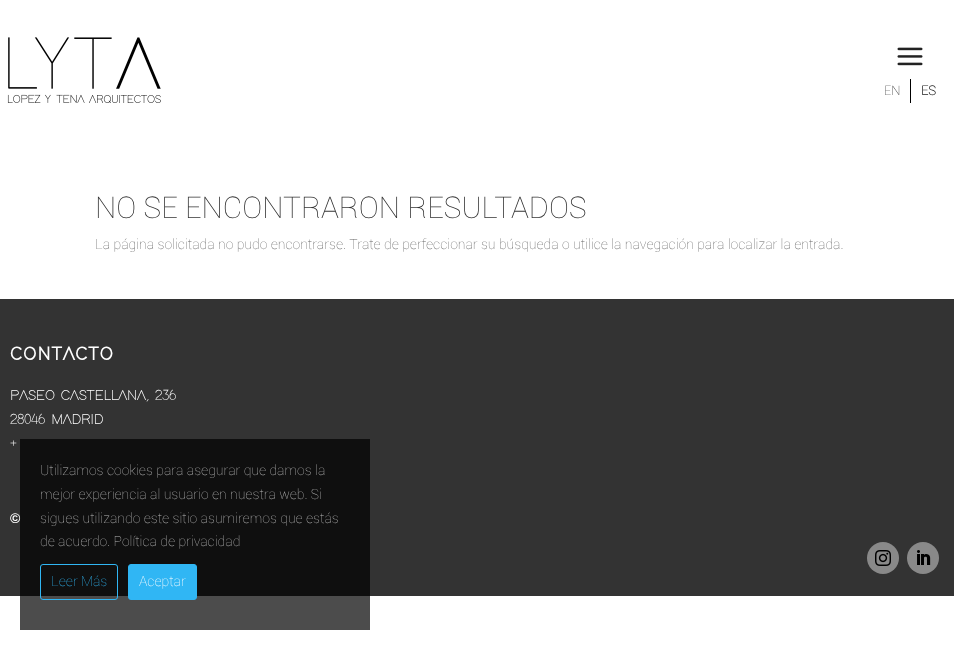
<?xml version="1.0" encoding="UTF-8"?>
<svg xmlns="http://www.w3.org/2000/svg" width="954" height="650">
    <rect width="100%" height="100%" fill="#FFFFFF"/>
    <image x="7" y="37" width="154" height="66" href="img_01.png"/>
    <image x="897" y="47" width="26" height="19" href="img_02.png"/>
    <rect x="910" y="79" width="1" height="24" fill="#000000"/>
    <text x="884" y="95" font-family="Roboto" font-size="13" font-weight="100" fill="#222222">EN</text>
    <text x="921" y="95" font-family="Roboto" font-size="13" font-weight="700" fill="#222222">ES</text>
    <text x="95" y="218" font-family="Roboto" font-size="30" font-weight="100" fill="#333333">NO SE ENCONTRARON RESULTADOS</text>
    <text x="95" y="249" font-family="Roboto" font-size="14" font-weight="100" fill="#666666">La página solicitada no pudo encontrarse. Trate de perfeccionar su búsqueda o utilice la navegación para localizar la entrada.</text>
    <rect x="0" y="299" width="954" height="297" fill="#333333"/>
    <text x="10" y="360" font-family="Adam" font-size="20" font-weight="700" fill="#FFFFFF">CONTACTO</text>
    <text font-family="'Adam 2'" font-size="14" font-weight="700" fill="#FFFFFF">
        <tspan x="10" y="400">PASEO CASTELLANA, 236</tspan>
        <tspan x="10" y="424">28046 MADRID</tspan>
        <tspan x="10" y="448">+</tspan>
    </text>
    <text x="10" y="523" font-family="Liberation Sans" font-size="14" font-weight="700" fill="#FFFFFF">©</text>
    <circle cx="883" cy="558" r="16" fill="#898989"/>
    <image x="875" y="550" width="16" height="16" href="img_03.png"/>
    <circle cx="923" cy="558" r="16" fill="#898989"/>
    <image x="917" y="550" width="14" height="15" href="img_04.png"/>
    <rect x="20" y="439" width="350" height="191" fill="#000000" fill-opacity="0.7"/>
    <text font-family="Roboto" font-size="14" font-weight="100" fill="#B7B7B7">
        <tspan x="40" y="475">Utilizamos cookies para asegurar que damos la</tspan>
        <tspan x="40" y="499">mejor experiencia al usuario en nuestra web. Si</tspan>
        <tspan x="40" y="523">sigues utilizando este sitio asumiremos que estás</tspan>
        <tspan x="40" y="546">de acuerdo. Política de privacidad</tspan>
    </text>
    <rect x="40.5" y="564.5" width="77" height="35" rx="2.5" fill="none" stroke="#30B6F4"/>
    <text x="51" y="586" font-family="Roboto" font-size="14" font-weight="100" fill="#30B6F4">Leer Más</text>
    <rect x="128.5" y="564.5" width="68" height="35" rx="2.5" fill="#30B6F4" stroke="#30B6F4"/>
    <text x="139" y="586" font-family="Roboto" font-size="14" font-weight="100" fill="#FFFFFF">Aceptar</text>
</svg>
